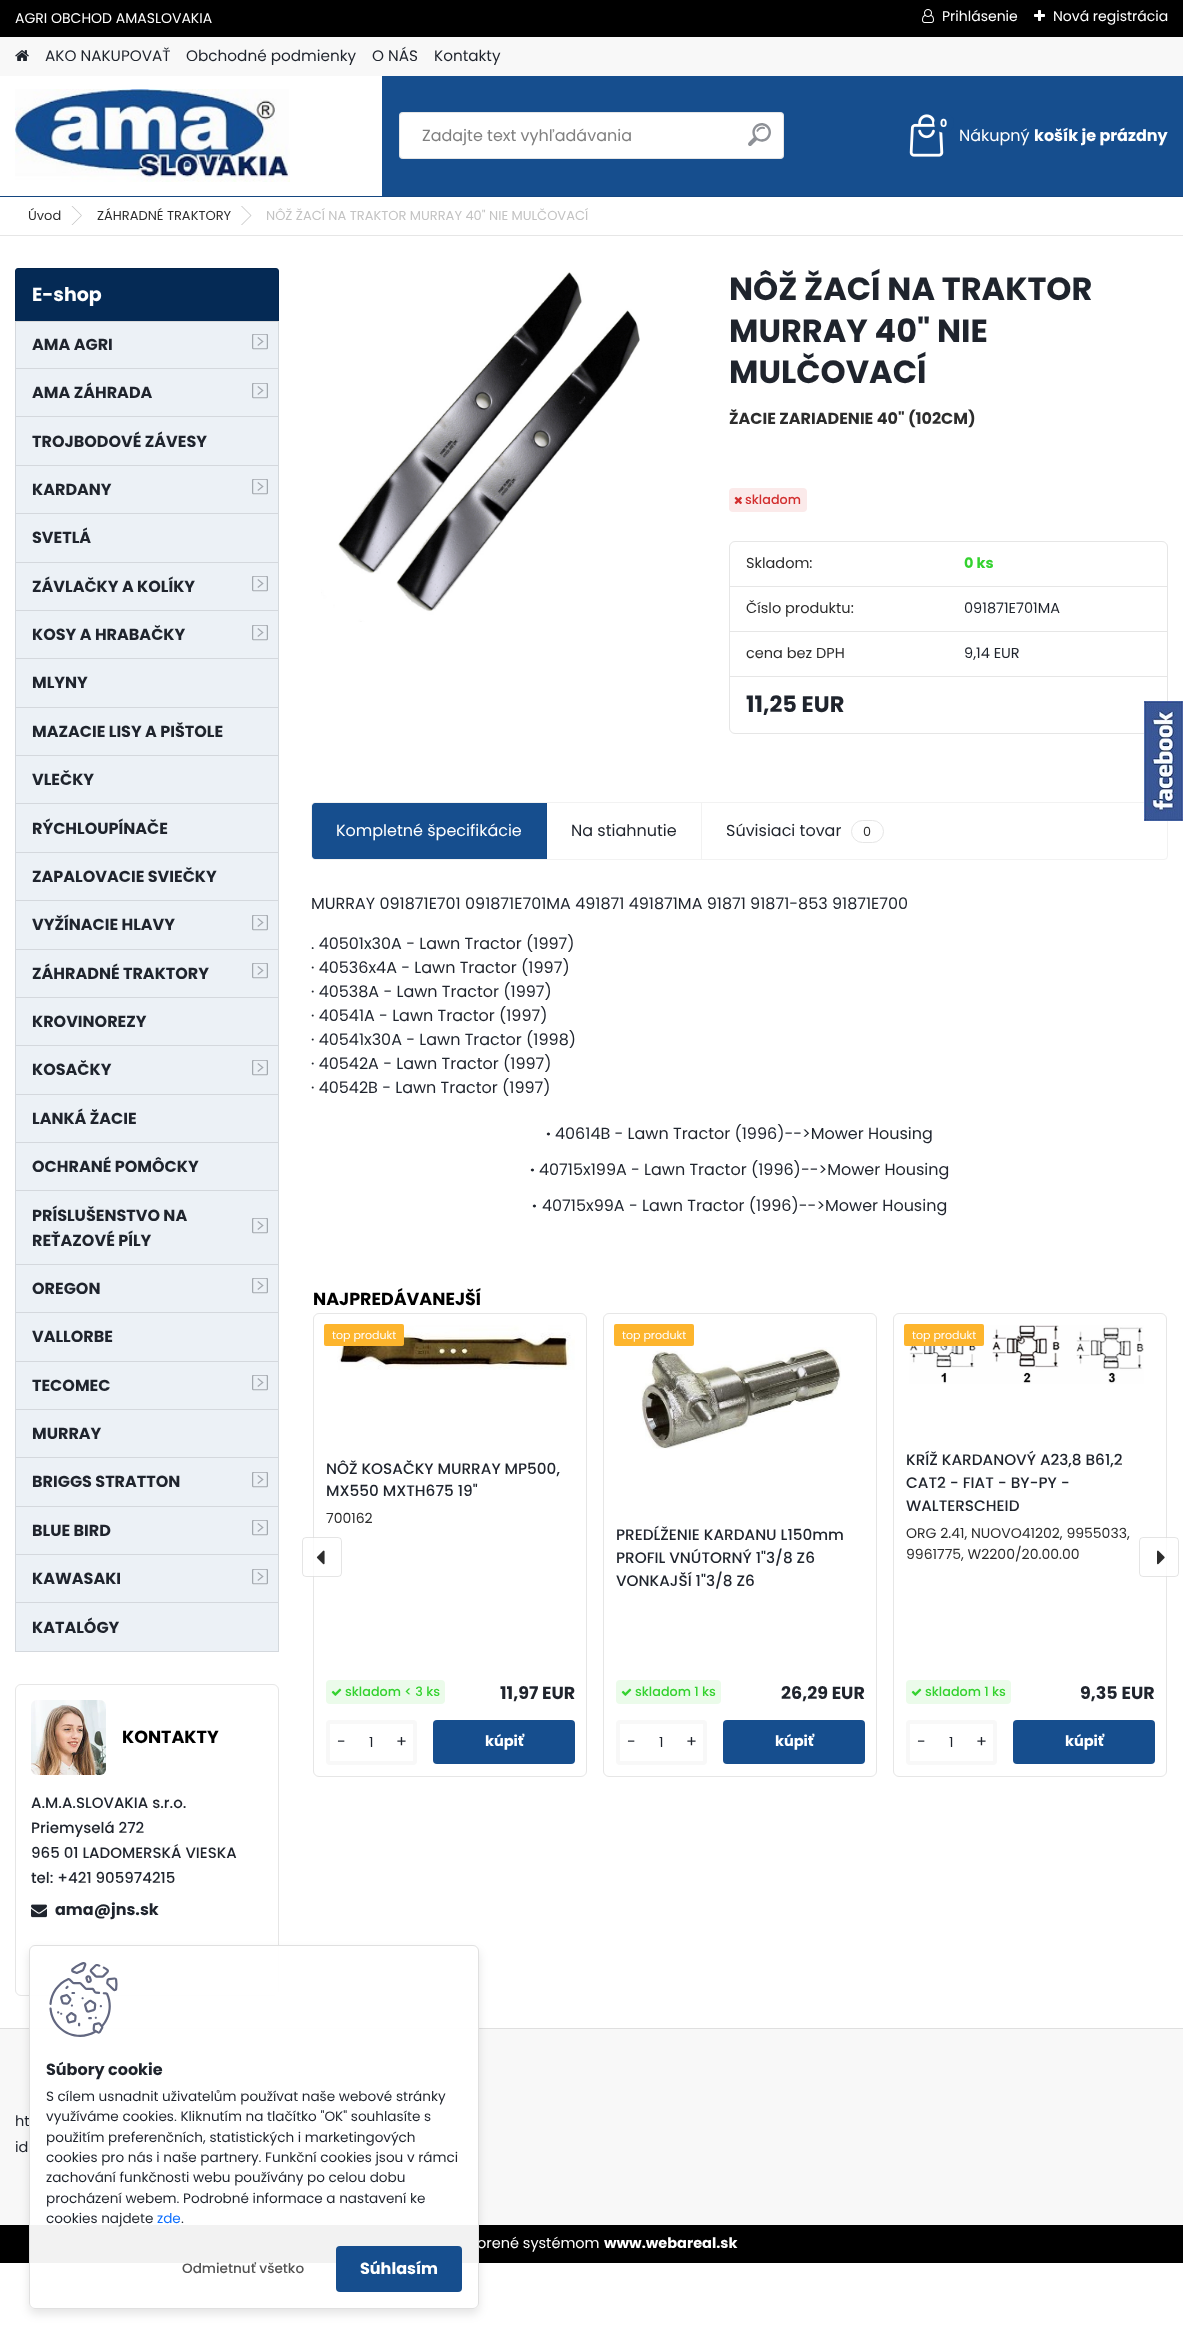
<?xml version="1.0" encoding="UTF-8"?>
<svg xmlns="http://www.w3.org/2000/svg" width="1183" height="2338">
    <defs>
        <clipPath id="clip1"><path d="M 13 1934 H 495 V 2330 H 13 Z M 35 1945 H 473 C 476.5 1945 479 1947.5 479 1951 V 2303 C 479 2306.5 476.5 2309 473 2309 H 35 C 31.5 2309 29 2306.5 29 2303 V 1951 C 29 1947.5 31.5 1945 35 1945 Z" clip-rule="evenodd"/></clipPath>
        <filter id="blur1" x="-50%" y="-200%" width="200%" height="500%"><feGaussianBlur stdDeviation="5"/></filter>
    </defs>
    <rect width="100%" height="100%" fill="#FFFFFF"/>
    <rect x="0" y="0" width="1183" height="37" fill="#000000"/>
    <text x="15" y="23" font-family="Poppins" font-size="14" fill="#FFFFFF">AGRI OBCHOD AMASLOVAKIA</text>
    <image x="922" y="9" width="12" height="14" href="img_01.png"/>
    <text x="942" y="21" font-family="Poppins" font-size="14" fill="#FFFFFF">Prihlásenie</text>
    <image x="1034" y="10" width="11" height="11" href="img_02.png"/>
    <text x="1053" y="21" font-family="Poppins" font-size="14" fill="#FFFFFF">Nová registrácia</text>
    <rect x="382" y="76" width="801" height="120" fill="#164E8E"/>
    <rect x="0" y="196" width="1183" height="1" fill="#144680"/>
    <rect x="0" y="37" width="1183" height="39" fill="#F8F8F8"/>
    <image x="15" y="50" width="14" height="11" href="img_03.png"/>
    <text x="45" y="61" font-family="Poppins" font-size="15.25" fill="#1F242D">AKO NAKUPOVAŤ</text>
    <text x="186" y="61" font-family="Poppins" font-size="15.25" fill="#1F242D">Obchodné podmienky</text>
    <text x="372" y="61" font-family="Poppins" font-size="15.25" fill="#1F242D">O NÁS</text>
    <text x="434" y="61" font-family="Poppins" font-size="15.25" fill="#1F242D">Kontakty</text>
    <image x="15" y="89" width="275" height="93" href="img_04.png"/>
    <rect x="399" y="112" width="385" height="47" rx="4" fill="#FFFFFF"/>
    <rect x="399.5" y="112.5" width="384" height="46" rx="3.5" fill="none" stroke="#000000" stroke-opacity="0.1"/>
    <text x="422" y="141" font-family="Poppins" font-size="16" fill="#808080">Zadajte text vyhľadávania</text>
    <image x="748" y="123" width="23" height="23" href="img_05.png"/>
    <image x="909" y="114" width="35" height="43" href="img_06.png"/>
    <circle cx="944" cy="123" r="10" fill="#164E8E"/>
    <text x="940" y="127" font-family="Poppins" font-size="11" font-weight="700" fill="#FFFFFF">0</text>
    <text x="959" y="141" font-family="Poppins" font-size="16" fill="#FFFFFF">Nákupný</text>
    <text x="1034" y="141" font-family="Poppins" font-size="16" font-weight="700" fill="#FFFFFF">košík je prázdny</text>
    <rect x="0" y="235" width="1183" height="1" fill="#E6E6E6"/>
    <text x="28" y="220" font-family="Poppins" font-size="13" fill="#2D2D2D">Úvod</text>
    <path d="M 71.5 206 H 72.5 L 82 215.5 H 81 Z" fill="#C3C3C3"/>
    <path d="M 81 215.5 H 82 L 72.5 225 H 71.5 Z" fill="#C3C3C3"/>
    <text x="97" y="220" font-family="Poppins" font-size="13" fill="#2D2D2D">ZÁHRADNÉ TRAKTORY</text>
    <path d="M 241 206 H 242 L 251.5 215.5 H 250.5 Z" fill="#C3C3C3"/>
    <path d="M 250.5 215.5 H 251.5 L 242 225 H 241 Z" fill="#373737" fill-opacity="0.3"/>
    <text x="266" y="220" font-family="Poppins" font-size="13" fill="#C3C3C3">NÔŽ ŽACÍ NA TRAKTOR MURRAY 40" NIE MULČOVACÍ</text>
    <rect x="15" y="322" width="264" height="1330" fill="#ECF1F6"/>
    <path d="M 279 321 V 369 L 278 368 V 321 Z" fill="#D4D9DD"/>
    <path d="M 279 369 H 15 L 16 368 H 278 Z" fill="#000000" fill-opacity="0.1"/>
    <path d="M 15 369 V 321 H 16 V 368 Z" fill="#000000" fill-opacity="0.1"/>
    <rect x="15" y="321" width="264" height="1" fill="#D9D9D9"/>
    <path d="M 18 268 H 276 C 277.5 268 279 269.5 279 271 V 321 H 15 V 271 C 15 269.5 16.5 268 18 268 Z" fill="#052A55"/>
    <path d="M 18 268 H 276 C 278 268 279 269 279 271 V 321 H 15 V 271 C 15 269 16 268 18 268 Z M 18 269 H 276 C 277 269 278 270 278 271 V 321 H 16 V 271 C 16 270 17 269 18 269 Z" fill="#000000" fill-opacity="0.1" fill-rule="evenodd"/>
    <text x="32" y="301" font-family="Poppins" font-size="19" font-weight="700" fill="#FFFFFF">E-shop</text>
    <text x="32" y="350" font-family="Poppins" font-size="16" font-weight="700" fill="#1F242D">AMA AGRI</text>
    <image x="252" y="334" width="16" height="16" href="img_07.png"/>
    <path d="M 279 369 V 417 L 278 416 V 369 Z" fill="#D4D9DD"/>
    <path d="M 279 417 H 15 L 16 416 H 278 Z" fill="#000000" fill-opacity="0.1"/>
    <path d="M 15 417 V 369 H 16 V 416 Z" fill="#000000" fill-opacity="0.1"/>
    <text x="32" y="398" font-family="Poppins" font-size="16" font-weight="700" fill="#1F242D">AMA ZÁHRADA</text>
    <image x="252" y="383" width="16" height="16" href="img_07.png"/>
    <path d="M 279 417 V 466 L 278 465 V 417 Z" fill="#D4D9DD"/>
    <path d="M 279 466 H 15 L 16 465 H 278 Z" fill="#000000" fill-opacity="0.1"/>
    <path d="M 15 466 V 417 H 16 V 465 Z" fill="#000000" fill-opacity="0.1"/>
    <text x="32" y="447" font-family="Poppins" font-size="16" font-weight="700" fill="#1F242D">TROJBODOVÉ ZÁVESY</text>
    <path d="M 279 466 V 514 L 278 513 V 466 Z" fill="#D4D9DD"/>
    <path d="M 279 514 H 15 L 16 513 H 278 Z" fill="#000000" fill-opacity="0.1"/>
    <path d="M 15 514 V 466 H 16 V 513 Z" fill="#000000" fill-opacity="0.1"/>
    <text x="32" y="495" font-family="Poppins" font-size="16" font-weight="700" fill="#1F242D">KARDANY</text>
    <image x="252" y="479" width="16" height="16" href="img_07.png"/>
    <path d="M 279 514 V 563 L 278 562 V 514 Z" fill="#D4D9DD"/>
    <path d="M 279 563 H 15 L 16 562 H 278 Z" fill="#000000" fill-opacity="0.1"/>
    <path d="M 15 563 V 514 H 16 V 562 Z" fill="#000000" fill-opacity="0.1"/>
    <text x="32" y="543" font-family="Poppins" font-size="16" font-weight="700" fill="#1F242D">SVETLÁ</text>
    <path d="M 279 563 V 611 L 278 610 V 563 Z" fill="#D4D9DD"/>
    <path d="M 279 611 H 15 L 16 610 H 278 Z" fill="#000000" fill-opacity="0.1"/>
    <path d="M 15 611 V 563 H 16 V 610 Z" fill="#000000" fill-opacity="0.1"/>
    <text x="32" y="592" font-family="Poppins" font-size="16" font-weight="700" fill="#1F242D">ZÁVLAČKY A KOLÍKY</text>
    <image x="252" y="576" width="16" height="16" href="img_07.png"/>
    <path d="M 279 611 V 659 L 278 658 V 611 Z" fill="#D4D9DD"/>
    <path d="M 279 659 H 15 L 16 658 H 278 Z" fill="#000000" fill-opacity="0.1"/>
    <path d="M 15 659 V 611 H 16 V 658 Z" fill="#000000" fill-opacity="0.1"/>
    <text x="32" y="640" font-family="Poppins" font-size="16" font-weight="700" fill="#1F242D">KOSY A HRABAČKY</text>
    <image x="252" y="625" width="16" height="16" href="img_07.png"/>
    <path d="M 279 659 V 708 L 278 707 V 659 Z" fill="#D4D9DD"/>
    <path d="M 279 708 H 15 L 16 707 H 278 Z" fill="#000000" fill-opacity="0.1"/>
    <path d="M 15 708 V 659 H 16 V 707 Z" fill="#000000" fill-opacity="0.1"/>
    <text x="32" y="688" font-family="Poppins" font-size="16" font-weight="700" fill="#1F242D">MLYNY</text>
    <path d="M 279 708 V 756 L 278 755 V 708 Z" fill="#D4D9DD"/>
    <path d="M 279 756 H 15 L 16 755 H 278 Z" fill="#000000" fill-opacity="0.1"/>
    <path d="M 15 756 V 708 H 16 V 755 Z" fill="#000000" fill-opacity="0.1"/>
    <text x="32" y="737" font-family="Poppins" font-size="16" font-weight="700" fill="#1F242D">MAZACIE LISY A PIŠTOLE</text>
    <path d="M 279 756 V 804 L 278 803 V 756 Z" fill="#D4D9DD"/>
    <path d="M 279 804 H 15 L 16 803 H 278 Z" fill="#000000" fill-opacity="0.1"/>
    <path d="M 15 804 V 756 H 16 V 803 Z" fill="#000000" fill-opacity="0.1"/>
    <text x="32" y="785" font-family="Poppins" font-size="16" font-weight="700" fill="#1F242D">VLEČKY</text>
    <path d="M 279 804 V 853 L 278 852 V 804 Z" fill="#D4D9DD"/>
    <path d="M 279 853 H 15 L 16 852 H 278 Z" fill="#000000" fill-opacity="0.1"/>
    <path d="M 15 853 V 804 H 16 V 852 Z" fill="#000000" fill-opacity="0.1"/>
    <text x="32" y="834" font-family="Poppins" font-size="16" font-weight="700" fill="#1F242D">RÝCHLOUPÍNAČE</text>
    <path d="M 279 853 V 901 L 278 900 V 853 Z" fill="#D4D9DD"/>
    <path d="M 279 901 H 15 L 16 900 H 278 Z" fill="#000000" fill-opacity="0.1"/>
    <path d="M 15 901 V 853 H 16 V 900 Z" fill="#000000" fill-opacity="0.1"/>
    <text x="32" y="882" font-family="Poppins" font-size="16" font-weight="700" fill="#1F242D">ZAPALOVACIE SVIEČKY</text>
    <path d="M 279 901 V 950 L 278 949 V 901 Z" fill="#D4D9DD"/>
    <path d="M 279 950 H 15 L 16 949 H 278 Z" fill="#000000" fill-opacity="0.1"/>
    <path d="M 15 950 V 901 H 16 V 949 Z" fill="#000000" fill-opacity="0.1"/>
    <text x="32" y="930" font-family="Poppins" font-size="16" font-weight="700" fill="#1F242D">VYŽÍNACIE HLAVY</text>
    <image x="252" y="915" width="16" height="16" href="img_07.png"/>
    <path d="M 279 950 V 998 L 278 997 V 950 Z" fill="#D4D9DD"/>
    <path d="M 279 998 H 15 L 16 997 H 278 Z" fill="#000000" fill-opacity="0.1"/>
    <path d="M 15 998 V 950 H 16 V 997 Z" fill="#000000" fill-opacity="0.1"/>
    <text x="32" y="979" font-family="Poppins" font-size="16" font-weight="700" fill="#1F242D">ZÁHRADNÉ TRAKTORY</text>
    <image x="252" y="963" width="16" height="16" href="img_07.png"/>
    <path d="M 279 998 V 1046 L 278 1045 V 998 Z" fill="#D4D9DD"/>
    <path d="M 279 1046 H 15 L 16 1045 H 278 Z" fill="#000000" fill-opacity="0.1"/>
    <path d="M 15 1046 V 998 H 16 V 1045 Z" fill="#000000" fill-opacity="0.1"/>
    <text x="32" y="1027" font-family="Poppins" font-size="16" font-weight="700" fill="#1F242D">KROVINOREZY</text>
    <path d="M 279 1046 V 1095 L 278 1094 V 1046 Z" fill="#D4D9DD"/>
    <path d="M 279 1095 H 15 L 16 1094 H 278 Z" fill="#000000" fill-opacity="0.1"/>
    <path d="M 15 1095 V 1046 H 16 V 1094 Z" fill="#000000" fill-opacity="0.1"/>
    <text x="32" y="1075" font-family="Poppins" font-size="16" font-weight="700" fill="#1F242D">KOSAČKY</text>
    <image x="252" y="1060" width="16" height="16" href="img_07.png"/>
    <path d="M 279 1095 V 1143 L 278 1142 V 1095 Z" fill="#D4D9DD"/>
    <path d="M 279 1143 H 15 L 16 1142 H 278 Z" fill="#000000" fill-opacity="0.1"/>
    <path d="M 15 1143 V 1095 H 16 V 1142 Z" fill="#000000" fill-opacity="0.1"/>
    <text x="32" y="1124" font-family="Poppins" font-size="16" font-weight="700" fill="#1F242D">LANKÁ ŽACIE</text>
    <path d="M 279 1143 V 1191 L 278 1190 V 1143 Z" fill="#D4D9DD"/>
    <path d="M 279 1191 H 15 L 16 1190 H 278 Z" fill="#000000" fill-opacity="0.1"/>
    <path d="M 15 1191 V 1143 H 16 V 1190 Z" fill="#000000" fill-opacity="0.1"/>
    <text x="32" y="1172" font-family="Poppins" font-size="16" font-weight="700" fill="#1F242D">OCHRANÉ POMÔCKY</text>
    <path d="M 279 1191 V 1265 L 278 1264 V 1191 Z" fill="#D4D9DD"/>
    <path d="M 279 1265 H 15 L 16 1264 H 278 Z" fill="#000000" fill-opacity="0.1"/>
    <path d="M 15 1265 V 1191 H 16 V 1264 Z" fill="#000000" fill-opacity="0.1"/>
    <text font-family="Poppins" font-size="16" font-weight="700" fill="#1F242D">
        <tspan x="32" y="1221">PRÍSLUŠENSTVO NA</tspan>
        <tspan x="32" y="1246">REŤAZOVÉ PÍLY</tspan>
    </text>
    <image x="252" y="1218" width="16" height="16" href="img_07.png"/>
    <path d="M 279 1265 V 1313 L 278 1312 V 1265 Z" fill="#D4D9DD"/>
    <path d="M 279 1313 H 15 L 16 1312 H 278 Z" fill="#000000" fill-opacity="0.1"/>
    <path d="M 15 1313 V 1265 H 16 V 1312 Z" fill="#000000" fill-opacity="0.1"/>
    <text x="32" y="1294" font-family="Poppins" font-size="16" font-weight="700" fill="#1F242D">OREGON</text>
    <image x="252" y="1278" width="16" height="16" href="img_07.png"/>
    <path d="M 279 1313 V 1362 L 278 1361 V 1313 Z" fill="#D4D9DD"/>
    <path d="M 279 1362 H 15 L 16 1361 H 278 Z" fill="#000000" fill-opacity="0.1"/>
    <path d="M 15 1362 V 1313 H 16 V 1361 Z" fill="#000000" fill-opacity="0.1"/>
    <text x="32" y="1342" font-family="Poppins" font-size="16" font-weight="700" fill="#1F242D">VALLORBE</text>
    <path d="M 279 1362 V 1410 L 278 1409 V 1362 Z" fill="#D4D9DD"/>
    <path d="M 279 1410 H 15 L 16 1409 H 278 Z" fill="#000000" fill-opacity="0.1"/>
    <path d="M 15 1410 V 1362 H 16 V 1409 Z" fill="#000000" fill-opacity="0.1"/>
    <text x="32" y="1391" font-family="Poppins" font-size="16" font-weight="700" fill="#1F242D">TECOMEC</text>
    <image x="252" y="1375" width="16" height="16" href="img_07.png"/>
    <path d="M 279 1410 V 1458 L 278 1457 V 1410 Z" fill="#D4D9DD"/>
    <path d="M 279 1458 H 15 L 16 1457 H 278 Z" fill="#000000" fill-opacity="0.1"/>
    <path d="M 15 1458 V 1410 H 16 V 1457 Z" fill="#000000" fill-opacity="0.1"/>
    <text x="32" y="1439" font-family="Poppins" font-size="16" font-weight="700" fill="#1F242D">MURRAY</text>
    <path d="M 279 1458 V 1507 L 278 1506 V 1458 Z" fill="#D4D9DD"/>
    <path d="M 279 1507 H 15 L 16 1506 H 278 Z" fill="#000000" fill-opacity="0.1"/>
    <path d="M 15 1507 V 1458 H 16 V 1506 Z" fill="#000000" fill-opacity="0.1"/>
    <text x="32" y="1487" font-family="Poppins" font-size="16" font-weight="700" fill="#1F242D">BRIGGS STRATTON</text>
    <image x="252" y="1472" width="16" height="16" href="img_07.png"/>
    <path d="M 279 1507 V 1555 L 278 1554 V 1507 Z" fill="#D4D9DD"/>
    <path d="M 279 1555 H 15 L 16 1554 H 278 Z" fill="#000000" fill-opacity="0.1"/>
    <path d="M 15 1555 V 1507 H 16 V 1554 Z" fill="#000000" fill-opacity="0.1"/>
    <text x="32" y="1536" font-family="Poppins" font-size="16" font-weight="700" fill="#1F242D">BLUE BIRD</text>
    <image x="252" y="1520" width="16" height="16" href="img_08.png"/>
    <path d="M 279 1555 V 1603 L 278 1602 V 1555 Z" fill="#D4D9DD"/>
    <path d="M 279 1603 H 15 L 16 1602 H 278 Z" fill="#000000" fill-opacity="0.1"/>
    <path d="M 15 1603 V 1555 H 16 V 1602 Z" fill="#000000" fill-opacity="0.1"/>
    <text x="32" y="1584" font-family="Poppins" font-size="16" font-weight="700" fill="#1F242D">KAWASAKI</text>
    <image x="252" y="1569" width="16" height="16" href="img_07.png"/>
    <path d="M 279 1603 V 1652 L 278 1651 V 1603 Z" fill="#D4D9DD"/>
    <path d="M 279 1652 H 15 L 16 1651 H 278 Z" fill="#000000" fill-opacity="0.1"/>
    <path d="M 15 1652 V 1603 H 16 V 1651 Z" fill="#000000" fill-opacity="0.1"/>
    <text x="32" y="1633" font-family="Poppins" font-size="16" font-weight="700" fill="#1F242D">KATALÓGY</text>
    <rect x="15.5" y="1684.5" width="263" height="311" rx="5.5" fill="none" stroke="#E6E6E6"/>
    <image x="31" y="1700" width="75" height="75" href="img_09.png"/>
    <text x="122" y="1743" font-family="Poppins" font-size="17.5" font-weight="700" fill="#000000">KONTAKTY</text>
    <text font-family="Poppins" font-size="15" font-weight="500" fill="#1F242D">
        <tspan x="31" y="1808">A.M.A.SLOVAKIA s.r.o.</tspan>
        <tspan x="31" y="1833">Priemyselá 272</tspan>
        <tspan x="31" y="1858">965 01 LADOMERSKÁ VIESKA</tspan>
        <tspan x="31" y="1883">tel: +421 905974215</tspan>
    </text>
    <image x="31" y="1904" width="16" height="14" href="img_10.png"/>
    <text x="55" y="1915" font-family="Poppins" font-size="16" font-weight="700" fill="#1F242D">ama@jns.sk</text>
    <image x="321" y="272" width="319" height="350" href="img_11.png"/>
    <text font-family="Poppins" font-size="32" font-weight="700" fill="#1F242D">
        <tspan x="729" y="300">NÔŽ ŽACÍ NA TRAKTOR</tspan>
        <tspan x="729" y="342">MURRAY 40" NIE</tspan>
        <tspan x="729" y="383">MULČOVACÍ</tspan>
    </text>
    <text x="729" y="424" font-family="Poppins" font-size="16" font-weight="700" fill="#2D2D2D">ŽACIE ZARIADENIE 40" (102CM)</text>
    <rect x="729" y="488" width="78" height="24" rx="4" fill="#FBEAEA"/>
    <image x="734" y="496" width="8" height="9" href="img_12.png"/>
    <text x="745" y="504" font-family="Poppins" font-size="12.75" font-weight="500" fill="#D22F2F">skladom</text>
    <rect x="729.5" y="541.5" width="438" height="192" rx="5.5" fill="none" stroke="#E6E6E6"/>
    <rect x="730" y="586" width="437" height="1" fill="#E6E6E6"/>
    <text x="746" y="568" font-family="Poppins" font-size="14.5" fill="#2D2D2D">Skladom:</text>
    <text x="964" y="568" font-family="Poppins" font-size="14.5" font-weight="700" fill="#34D22F">0 ks</text>
    <rect x="730" y="631" width="437" height="1" fill="#E6E6E6"/>
    <text x="746" y="613" font-family="Poppins" font-size="14.5" fill="#2D2D2D">Číslo produktu:</text>
    <text x="964" y="613" font-family="Poppins" font-size="14.5" fill="#1F242D">091871E701MA</text>
    <rect x="730" y="676" width="437" height="1" fill="#E6E6E6"/>
    <text x="746" y="658" font-family="Poppins" font-size="14.5" fill="#2D2D2D">cena bez DPH</text>
    <text x="964" y="658" font-family="Poppins" font-size="14.5" fill="#1F242D">9,14 EUR</text>
    <text x="746" y="712" font-family="Poppins" font-size="22.5" font-weight="700" fill="#1F242D">11,25 EUR</text>
    <rect x="311.5" y="802.5" width="856" height="57" rx="3.5" fill="none" stroke="#F2F2F2"/>
    <path d="M 315 803 H 547 V 859 H 315 C 313.5 859 312 857.5 312 856 V 806 C 312 804.5 313.5 803 315 803 Z" fill="#164E8E"/>
    <rect x="546" y="803" width="1" height="56" fill="#154A87"/>
    <text x="336" y="836" font-family="Poppins" font-size="16" fill="#FFFFFF">Kompletné špecifikácie</text>
    <rect x="701" y="803" width="1" height="56" fill="#F2F2F2"/>
    <text x="571" y="836" font-family="Poppins" font-size="16" fill="#1F242D">Na stiahnutie</text>
    <text x="726" y="836" font-family="Poppins" font-size="16" fill="#1F242D">Súvisiaci tovar</text>
    <rect x="851.5" y="820.5" width="32" height="22" rx="11" fill="none" stroke="#E6E6E6"/>
    <text x="863" y="836" font-family="Poppins" font-size="12.75" fill="#2D2D2D">0</text>
    <text x="311" y="909" font-family="Poppins" font-size="16" fill="#1F242D">MURRAY 091871E701 091871E701MA 491871 491871MA 91871 91871-853 91871E700</text>
    <text font-family="Poppins" font-size="16" fill="#1F242D">
        <tspan x="311" y="949">. 40501x30A - Lawn Tractor (1997)</tspan>
        <tspan x="311" y="973">· 40536x4A - Lawn Tractor (1997)</tspan>
        <tspan x="311" y="997">· 40538A - Lawn Tractor (1997)</tspan>
        <tspan x="311" y="1021">· 40541A - Lawn Tractor (1997)</tspan>
        <tspan x="311" y="1045">· 40541x30A - Lawn Tractor (1998)</tspan>
        <tspan x="311" y="1069">· 40542A - Lawn Tractor (1997)</tspan>
        <tspan x="311" y="1093">· 40542B - Lawn Tractor (1997)</tspan>
    </text>
    <text x="546" y="1139" font-family="Poppins" font-size="16" font-weight="700" fill="#1F242D">·</text>
    <text x="555" y="1139" font-family="Poppins" font-size="16" fill="#1F242D">40614B - Lawn Tractor (1996)--&gt;Mower Housing</text>
    <text x="530" y="1175" font-family="Poppins" font-size="16" font-weight="700" fill="#1F242D">·</text>
    <text x="539" y="1175" font-family="Poppins" font-size="16" fill="#1F242D">40715x199A - Lawn Tractor (1996)--&gt;Mower Housing</text>
    <text x="532" y="1211" font-family="Poppins" font-size="16" font-weight="700" fill="#1F242D">·</text>
    <text x="542" y="1211" font-family="Poppins" font-size="16" fill="#1F242D">40715x99A - Lawn Tractor (1996)--&gt;Mower Housing</text>
    <text x="313" y="1305" font-family="Poppins" font-size="17.5" font-weight="700" fill="#000000">NAJPREDÁVANEJŠÍ</text>
    <rect x="313.5" y="1313.5" width="273" height="463" rx="5.5" fill="none" stroke="#E6E6E6"/>
    <image x="337" y="1325" width="238" height="45" href="img_13.png"/>
    <rect x="324" y="1324" width="80" height="22" rx="2" fill="#FDB52D"/>
    <text x="332" y="1339" font-family="Poppins" font-size="11" fill="#FFFFFF">top produkt</text>
    <text font-family="Poppins" font-size="15.25" font-weight="500" fill="#1F242D">
        <tspan x="326" y="1474">NÔŽ KOSAČKY MURRAY MP500,</tspan>
        <tspan x="326" y="1496">MX550 MXTH675 19"</tspan>
    </text>
    <text x="326" y="1523" font-family="Poppins" font-size="14" fill="#2D2D2D">700162</text>
    <rect x="326" y="1680" width="119" height="24" rx="4" fill="#EBFBEA"/>
    <image x="331" y="1688" width="11" height="8" href="img_14.png"/>
    <text x="345" y="1696" font-family="Poppins" font-size="12.75" font-weight="500" fill="#34D22F">skladom &lt; 3 ks</text>
    <text x="500" y="1699" font-family="Poppins" font-size="17.5" font-weight="700" fill="#1F242D">11,97 EUR</text>
    <rect x="328" y="1722" width="87" height="41" rx="2" fill="none" stroke="#F8F8F8" stroke-width="4"/>
    <text x="337" y="1747" font-family="Poppins" font-size="16" fill="#1F242D">-</text>
    <text x="369" y="1747" font-family="Poppins" font-size="14" fill="#1F242D">1</text>
    <text x="396" y="1747" font-family="Poppins" font-size="16" fill="#1F242D">+</text>
    <rect x="433" y="1720" width="142" height="44" rx="4" fill="#164E8E"/>
    <text x="485" y="1746" font-family="Poppins" font-size="14.5" font-weight="700" fill="#FFFFFF">kúpiť</text>
    <rect x="603.5" y="1313.5" width="273" height="463" rx="5.5" fill="none" stroke="#E6E6E6"/>
    <rect x="614" y="1324" width="80" height="22" rx="2" fill="#FDB52D"/>
    <text x="622" y="1339" font-family="Poppins" font-size="11" fill="#FFFFFF">top produkt</text>
    <image x="641" y="1347" width="200" height="102" href="img_15.png"/>
    <text font-family="Poppins" font-size="15.25" font-weight="500" fill="#1F242D">
        <tspan x="616" y="1540">PREDĹŽENIE KARDANU L150mm</tspan>
        <tspan x="616" y="1563">PROFIL VNÚTORNÝ 1"3/8 Z6</tspan>
        <tspan x="616" y="1586">VONKAJŠÍ 1"3/8 Z6</tspan>
    </text>
    <rect x="616" y="1680" width="105" height="24" rx="4" fill="#EBFBEA"/>
    <image x="621" y="1688" width="11" height="8" href="img_14.png"/>
    <text x="635" y="1696" font-family="Poppins" font-size="12.75" font-weight="500" fill="#34D22F">skladom 1 ks</text>
    <text x="781" y="1699" font-family="Poppins" font-size="17.5" font-weight="700" fill="#1F242D">26,29 EUR</text>
    <rect x="618" y="1722" width="87" height="41" rx="2" fill="none" stroke="#F8F8F8" stroke-width="4"/>
    <text x="627" y="1747" font-family="Poppins" font-size="16" fill="#1F242D">-</text>
    <text x="659" y="1747" font-family="Poppins" font-size="14" fill="#1F242D">1</text>
    <text x="686" y="1747" font-family="Poppins" font-size="16" fill="#1F242D">+</text>
    <rect x="723" y="1720" width="142" height="44" rx="4" fill="#164E8E"/>
    <text x="775" y="1746" font-family="Poppins" font-size="14.5" font-weight="700" fill="#FFFFFF">kúpiť</text>
    <rect x="893.5" y="1313.5" width="273" height="463" rx="5.5" fill="none" stroke="#E6E6E6"/>
    <image x="909" y="1325" width="235" height="59" href="img_16.png"/>
    <rect x="904" y="1324" width="80" height="22" rx="2" fill="#FDB52D"/>
    <text x="912" y="1339" font-family="Poppins" font-size="11" fill="#FFFFFF">top produkt</text>
    <text font-family="Poppins" font-size="15.25" font-weight="500" fill="#1F242D">
        <tspan x="906" y="1465">KRÍŽ KARDANOVÝ A23,8 B61,2</tspan>
        <tspan x="906" y="1488">CAT2 - FIAT - BY-PY -</tspan>
        <tspan x="906" y="1511">WALTERSCHEID</tspan>
    </text>
    <text font-family="Poppins" font-size="14" fill="#2D2D2D">
        <tspan x="906" y="1538">ORG 2.41, NUOVO41202, 9955033,</tspan>
        <tspan x="906" y="1559">9961775, W2200/20.00.00</tspan>
    </text>
    <rect x="906" y="1680" width="105" height="24" rx="4" fill="#EBFBEA"/>
    <image x="911" y="1688" width="11" height="8" href="img_14.png"/>
    <text x="925" y="1696" font-family="Poppins" font-size="12.75" font-weight="500" fill="#34D22F">skladom 1 ks</text>
    <text x="1080" y="1699" font-family="Poppins" font-size="17.5" font-weight="700" fill="#1F242D">9,35 EUR</text>
    <rect x="908" y="1722" width="87" height="41" rx="2" fill="none" stroke="#F8F8F8" stroke-width="4"/>
    <text x="917" y="1747" font-family="Poppins" font-size="16" fill="#1F242D">-</text>
    <text x="949" y="1747" font-family="Poppins" font-size="14" fill="#1F242D">1</text>
    <text x="976" y="1747" font-family="Poppins" font-size="16" fill="#1F242D">+</text>
    <rect x="1013" y="1720" width="142" height="44" rx="4" fill="#164E8E"/>
    <text x="1065" y="1746" font-family="Poppins" font-size="14.5" font-weight="700" fill="#FFFFFF">kúpiť</text>
    <rect x="302" y="1537" width="40" height="40" rx="4" fill="#FFFFFF" fill-opacity="0.8"/>
    <rect x="302.5" y="1537.5" width="39" height="39" rx="3.5" fill="none" stroke="#000000" stroke-opacity="0.1"/>
    <image x="316" y="1550" width="9" height="15" href="img_17.png"/>
    <rect x="1139" y="1537" width="40" height="40" rx="4" fill="#FFFFFF" fill-opacity="0.8"/>
    <rect x="1139.5" y="1537.5" width="39" height="39" rx="3.5" fill="none" stroke="#000000" stroke-opacity="0.1"/>
    <image x="1157" y="1550" width="8" height="15" href="img_18.png"/>
    <image x="1144" y="701" width="39" height="120" href="img_19.png"/>
    <rect x="0" y="2029" width="1183" height="196" fill="#F8F8F8"/>
    <rect x="0" y="2028" width="1183" height="1" fill="#DFDFDF"/>
    <text font-family="Poppins" font-size="14.5" fill="#1F242D">
        <tspan x="15" y="2126">ht</tspan>
        <tspan x="15" y="2152">id</tspan>
    </text>
    <rect x="0" y="2225" width="1183" height="38" fill="#000000"/>
    <text x="477" y="2248" font-family="Poppins" font-size="14.5" fill="#FFFFFF">orené systémom</text>
    <text x="604" y="2248" font-family="Poppins" font-size="14.5" font-weight="700" fill="#FFFFFF">www.webareal.sk</text>
    <g clip-path="url(#clip1)">
        <rect x="29" y="1950" width="450" height="364" rx="6" fill="#000000" fill-opacity="0.1" filter="url(#blur1)"/>
    </g>
    <rect x="29.5" y="1945.5" width="449" height="363" rx="5.5" fill="#FFFFFF" fill-opacity="0.95" stroke="#E0E0E0"/>
    <image x="49" y="1962" width="69" height="75" href="img_20.png"/>
    <text x="46" y="2075" font-family="Poppins" font-size="16" font-weight="700" fill="#1F242D">Súbory cookie</text>
    <text font-family="Poppins" font-size="13.6" fill="#1F242D">
        <tspan x="46" y="2101">S cílem usnadnit uživatelům používat naše webové stránky</tspan>
        <tspan x="46" y="2121">využíváme cookies. Kliknutím na tlačítko "OK" souhlasíte s</tspan>
        <tspan x="46" y="2142">použitím preferenčních, statistických i marketingových</tspan>
        <tspan x="46" y="2162">cookies pro nás i naše partnery. Funkční cookies jsou v rámci</tspan>
        <tspan x="46" y="2182">zachování funkčnosti webu používány po celou dobu</tspan>
        <tspan x="46" y="2203">procházení webem. Podrobné informace a nastavení ke</tspan>
        <tspan x="46" y="2223">cookies najdete</tspan>
    </text>
    <text x="157" y="2223" font-family="Poppins" font-size="13.6" fill="#0D6EFD">zde</text>
    <text x="181" y="2223" font-family="Poppins" font-size="13.6" fill="#1F242D">.</text>
    <text x="182" y="2273" font-family="Poppins" font-size="13.6" font-weight="500" fill="#535353">Odmietnuť všetko</text>
    <rect x="336" y="2246" width="126" height="46" rx="4" fill="#164E8E"/>
    <text x="360" y="2274" font-family="Poppins" font-size="16" font-weight="700" fill="#FFFFFF">Súhlasím</text>
</svg>
